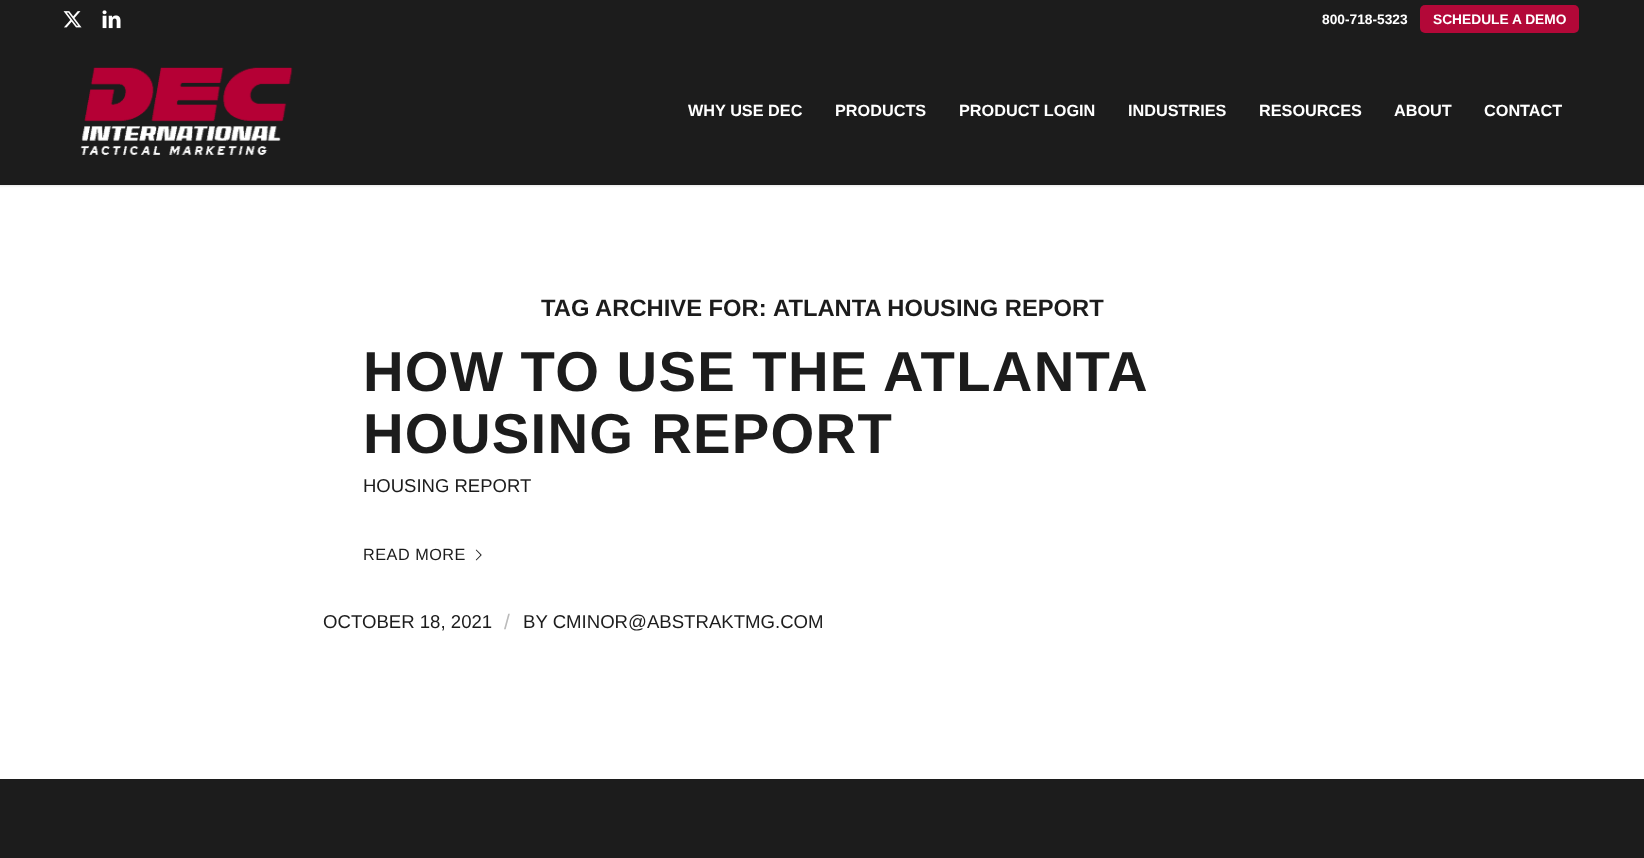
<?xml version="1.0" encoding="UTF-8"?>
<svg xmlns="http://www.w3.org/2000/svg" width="1644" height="858">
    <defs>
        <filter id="blur1" x="-50%" y="-200%" width="200%" height="500%"><feGaussianBlur stdDeviation="1"/></filter>
    </defs>
    <rect width="100%" height="100%" fill="#1C1C1C"/>
    <rect x="0" y="185" width="1644" height="594" fill="#FFFFFF"/>
    <rect x="-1" y="-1" width="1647" height="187" fill="#000000" fill-opacity="0.1" filter="url(#blur1)"/>
    <rect x="0" y="0" width="1644" height="185" fill="#1C1C1C"/>
    <image x="63" y="11" width="19" height="17" href="img_01.png"/>
    <image x="102" y="10" width="19" height="19" href="img_02.png"/>
    <text x="1322" y="24" font-family="Liberation Sans" font-size="13.75" font-weight="700" fill="#FFFFFF">800-718-5323</text>
    <rect x="1420" y="5" width="159" height="28" rx="5" fill="#B30838"/>
    <text x="1433" y="24" font-family="Liberation Sans" font-size="13.75" font-weight="700" fill="#FFFFFF">SCHEDULE A DEMO</text>
    <image x="80" y="67" width="213" height="88" href="img_03.png"/>
    <text x="688" y="116" font-family="Liberation Sans" font-size="16.25" font-weight="700" fill="#FFFFFF">WHY USE DEC</text>
    <text x="835" y="116" font-family="Liberation Sans" font-size="16.25" font-weight="700" fill="#FFFFFF">PRODUCTS</text>
    <text x="959" y="116" font-family="Liberation Sans" font-size="16.25" font-weight="700" fill="#FFFFFF">PRODUCT LOGIN</text>
    <text x="1128" y="116" font-family="Liberation Sans" font-size="16.25" font-weight="700" fill="#FFFFFF">INDUSTRIES</text>
    <text x="1259" y="116" font-family="Liberation Sans" font-size="16.25" font-weight="700" fill="#FFFFFF">RESOURCES</text>
    <text x="1394" y="116" font-family="Liberation Sans" font-size="16.25" font-weight="700" fill="#FFFFFF">ABOUT</text>
    <text x="1484" y="116" font-family="Liberation Sans" font-size="16.25" font-weight="700" fill="#FFFFFF">CONTACT</text>
    <text x="541" y="316" font-family="Liberation Sans" font-size="23.75" font-weight="700" fill="#1C1C1C">TAG ARCHIVE FOR:</text>
    <text x="773" y="316" font-family="Liberation Sans" font-size="23.75" font-weight="700" fill="#1C1C1C">ATLANTA HOUSING REPORT</text>
    <text font-family="Liberation Sans" font-size="56.25" font-weight="700" letter-spacing="1.25" fill="#1C1C1C">
        <tspan x="363" y="391" word-spacing="-0.5">HOW TO USE THE ATLANTA</tspan>
        <tspan x="363" y="453">HOUSING REPORT</tspan>
    </text>
    <text x="363" y="492" font-family="Liberation Sans" font-size="18.5" fill="#1C1C1C">HOUSING REPORT</text>
    <text x="363" y="560" font-family="Liberation Sans" font-size="16.25" letter-spacing="0.5" fill="#1C1C1C">READ MORE</text>
    <image x="475" y="549" width="7" height="12" href="img_04.png"/>
    <text x="323" y="628" font-family="Liberation Sans" font-size="18.6" fill="#1C1C1C">OCTOBER 18, 2021</text>
    <text x="504" y="629" font-family="Liberation Sans" font-size="21" fill="#BBBBBB">/</text>
    <text x="523" y="628" font-family="Liberation Sans" font-size="18.6" fill="#1C1C1C">BY CMINOR@ABSTRAKTMG.COM</text>
</svg>
